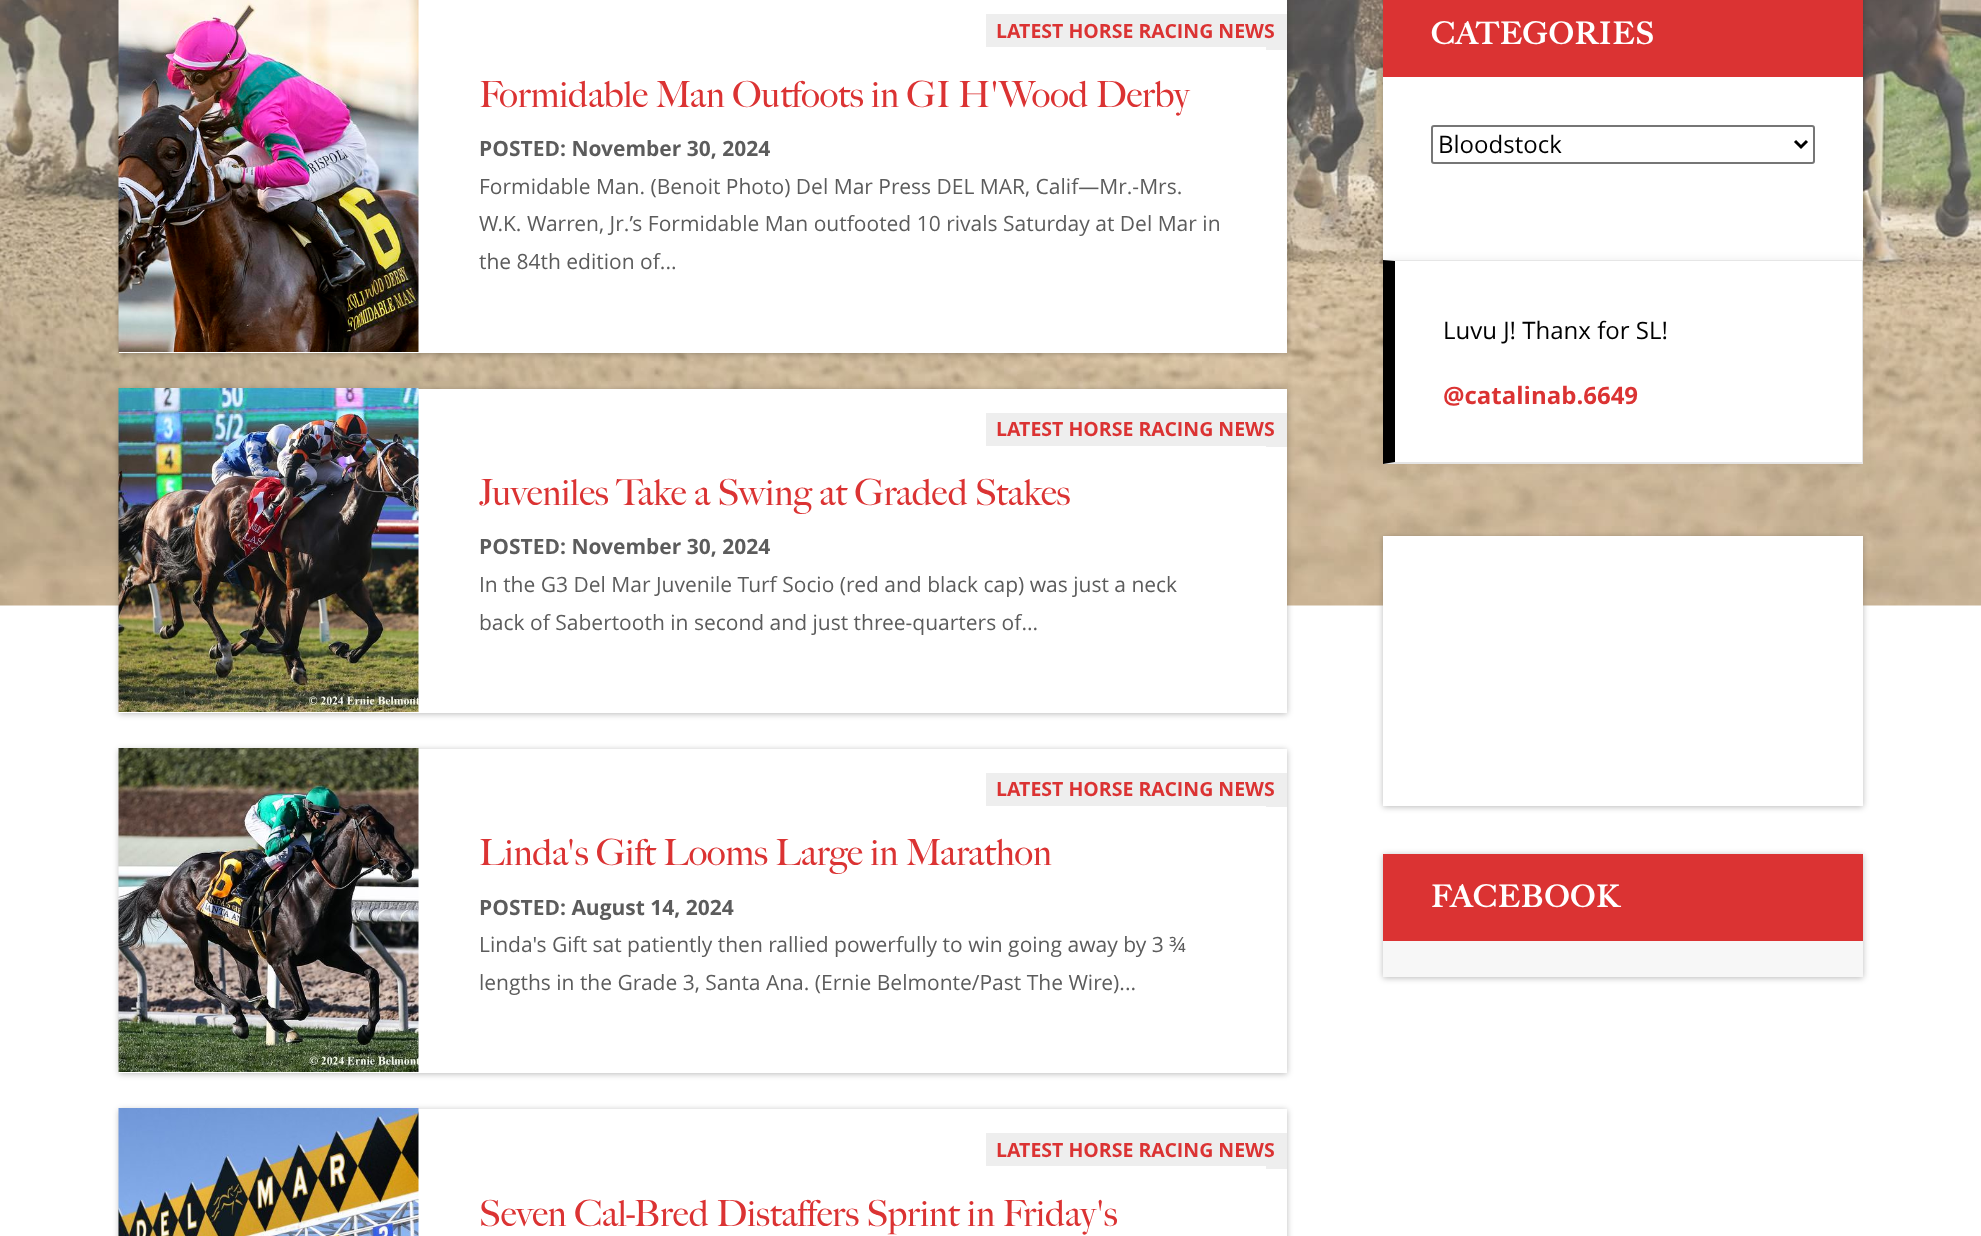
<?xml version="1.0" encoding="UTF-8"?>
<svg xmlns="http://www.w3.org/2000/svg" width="1981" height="1236">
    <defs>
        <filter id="blur1" x="-50%" y="-200%" width="200%" height="500%"><feGaussianBlur stdDeviation="3"/></filter>
        <clipPath id="clip1"><path d="M 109 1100 H 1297 V 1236 H 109 Z M 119 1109 H 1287 V 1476 H 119 Z" clip-rule="evenodd"/></clipPath>
        <filter id="blur2" x="-50%" y="-200%" width="200%" height="500%"><feGaussianBlur stdDeviation="4.5"/></filter>
    </defs>
    <rect width="100%" height="100%" fill="#FFFFFF"/>
    <image x="0" y="0" width="1981" height="606" href="img_01.png"/>
    <rect x="119" y="-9" width="1168" height="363" fill="#000000" fill-opacity="0.27" filter="url(#blur1)"/>
    <rect x="119" y="0" width="1168" height="353" fill="#FFFFFF"/>
    <image x="118" y="0" width="301" height="352" href="img_02.png"/>
    <rect x="1266" y="14" width="21" height="36" fill="#EEEEEE"/>
    <rect x="986" y="14" width="280" height="33" fill="#EEEEEE"/>
    <text x="996" y="38" font-family="Open Sans" font-size="19.5" font-weight="700" fill="#DB3333">LATEST HORSE RACING NEWS</text>
    <text x="479" y="107" font-family="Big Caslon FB" font-size="36" fill="#DB3333">Formidable Man Outfoots in GI H'Wood Derby</text>
    <text x="479" y="156" font-family="Open Sans" font-size="21" font-weight="700" fill="#5C5C5C">POSTED: November 30, 2024</text>
    <text font-family="Open Sans" font-size="21" fill="#5C5C5C">
        <tspan x="479" y="194">Formidable Man. (Benoit Photo) Del Mar Press DEL MAR, Calif—Mr.-Mrs.</tspan>
        <tspan x="479" y="231">W.K. Warren, Jr.’s Formidable Man outfooted 10 rivals Saturday at Del Mar in</tspan>
        <tspan x="479" y="269">the 84th edition of...</tspan>
    </text>
    <rect x="119" y="390" width="1168" height="324" fill="#000000" fill-opacity="0.27" filter="url(#blur1)"/>
    <rect x="119" y="389" width="1168" height="324" fill="#FFFFFF"/>
    <image x="118" y="388" width="301" height="324" href="img_03.png"/>
    <rect x="1266" y="413" width="21" height="34" fill="#EEEEEE"/>
    <rect x="986" y="413" width="280" height="33" fill="#EEEEEE"/>
    <text x="996" y="436" font-family="Open Sans" font-size="19.5" font-weight="700" fill="#DB3333">LATEST HORSE RACING NEWS</text>
    <text x="479" y="505" font-family="Big Caslon FB" font-size="36" fill="#DB3333">Juveniles Take a Swing at Graded Stakes</text>
    <text x="479" y="554" font-family="Open Sans" font-size="21" font-weight="700" fill="#5C5C5C">POSTED: November 30, 2024</text>
    <text font-family="Open Sans" font-size="21" fill="#5C5C5C">
        <tspan x="479" y="592">In the G3 Del Mar Juvenile Turf Socio (red and black cap) was just a neck</tspan>
        <tspan x="479" y="630">back of Sabertooth in second and just three-quarters of...</tspan>
    </text>
    <rect x="119" y="750" width="1168" height="324" fill="#000000" fill-opacity="0.27" filter="url(#blur1)"/>
    <rect x="119" y="749" width="1168" height="324" fill="#FFFFFF"/>
    <image x="118" y="748" width="301" height="324" href="img_04.png"/>
    <rect x="1266" y="773" width="21" height="34" fill="#EEEEEE"/>
    <rect x="986" y="773" width="280" height="33" fill="#EEEEEE"/>
    <text x="996" y="796" font-family="Open Sans" font-size="19.5" font-weight="700" fill="#DB3333">LATEST HORSE RACING NEWS</text>
    <text x="479" y="865" font-family="Big Caslon FB" font-size="36" fill="#DB3333">Linda's Gift Looms Large in Marathon</text>
    <text x="479" y="915" font-family="Open Sans" font-size="21" font-weight="700" fill="#5C5C5C">POSTED: August 14, 2024</text>
    <text font-family="Open Sans" font-size="21" fill="#5C5C5C">
        <tspan x="479" y="952">Linda's Gift sat patiently then rallied powerfully to win going away by 3 ¾</tspan>
        <tspan x="479" y="990">lengths in the Grade 3, Santa Ana. (Ernie Belmonte/Past The Wire)...</tspan>
    </text>
    <g clip-path="url(#clip1)">
        <rect x="119" y="1110" width="1168" height="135" fill="#000000" fill-opacity="0.27" filter="url(#blur1)"/>
    </g>
    <image x="118" y="1108" width="301" height="128" href="img_05.png"/>
    <rect x="1266" y="1133" width="21" height="36" fill="#EEEEEE"/>
    <rect x="986" y="1133" width="280" height="33" fill="#EEEEEE"/>
    <text x="996" y="1157" font-family="Open Sans" font-size="19.5" font-weight="700" fill="#DB3333">LATEST HORSE RACING NEWS</text>
    <text x="479" y="1226" font-family="Big Caslon FB" font-size="36" fill="#DB3333">Seven Cal-Bred Distaffers Sprint in Friday's</text>
    <rect x="1383" y="-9" width="480" height="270" fill="#000000" fill-opacity="0.27" filter="url(#blur1)"/>
    <rect x="1383" y="77" width="480" height="183" fill="#FFFFFF"/>
    <rect x="1383" y="0" width="480" height="77" fill="#DB3333"/>
    <text x="1431" y="44" font-family="Big Caslon FB" font-size="30" font-weight="700" letter-spacing="1.5" fill="#FFFFFF">CATEGORIES</text>
    <rect x="1432" y="126" width="382" height="37" rx="2" fill="none" stroke="#767676" stroke-width="2"/>
    <path d="M 1795 141 L 1801 147 L 1807 141" fill="none" stroke="#000000" stroke-width="3"/>
    <text x="1438" y="153" font-family="Open Sans" font-size="24" fill="#000000">Bloodstock</text>
    <rect x="1383" y="260" width="480" height="204" fill="#000000" fill-opacity="0.07" filter="url(#blur2)"/>
    <rect x="1383" y="260" width="480" height="204" fill="#FFFFFF"/>
    <path d="M 1383 260 H 1863 L 1862 261 H 1395 Z" fill="#E6E6E6"/>
    <path d="M 1863 260 V 464 L 1862 462 V 261 Z" fill="#000000" fill-opacity="0.1"/>
    <path d="M 1863 464 H 1383 L 1395 462 H 1862 Z" fill="#000000" fill-opacity="0.1"/>
    <path d="M 1383 464 V 260 L 1395 261 V 462 Z" fill="#000000"/>
    <text x="1443" y="339" font-family="Open Sans" font-size="24" fill="#000000">Luvu J! Thanx for SL!</text>
    <text x="1443" y="404" font-family="Open Sans" font-size="24" font-weight="700" fill="#DB3333">@catalinab.6649</text>
    <rect x="1383" y="537" width="480" height="270" fill="#000000" fill-opacity="0.27" filter="url(#blur1)"/>
    <rect x="1383" y="536" width="480" height="270" fill="#FFFFFF"/>
    <rect x="1383" y="855" width="480" height="123" fill="#000000" fill-opacity="0.27" filter="url(#blur1)"/>
    <rect x="1383" y="941" width="480" height="36" fill="#F7F7F7"/>
    <rect x="1383" y="854" width="480" height="87" fill="#DB3333"/>
    <text x="1431" y="907" font-family="Big Caslon FB" font-size="30" font-weight="700" letter-spacing="1.5" fill="#FFFFFF">FACEBOOK</text>
</svg>
